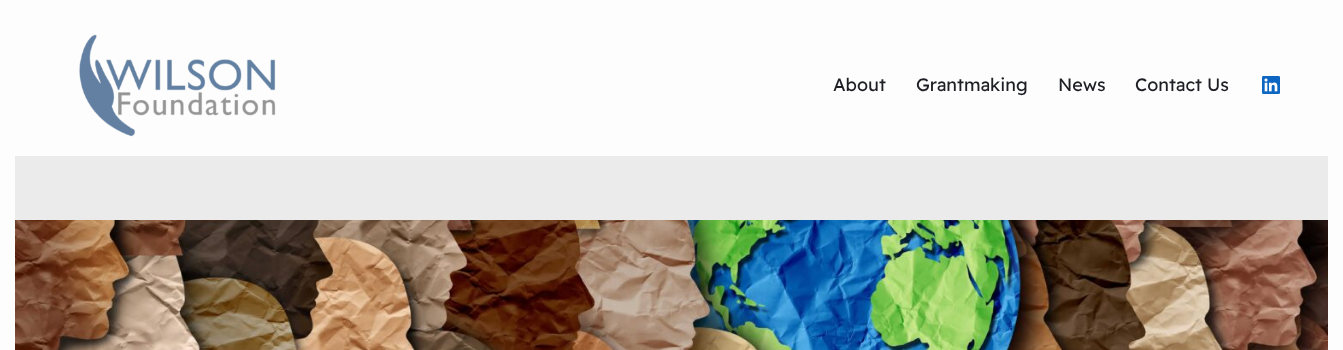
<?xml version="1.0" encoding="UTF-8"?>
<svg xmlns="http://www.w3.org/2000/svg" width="1343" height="350">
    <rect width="100%" height="100%" fill="#FDFDFD"/>
    <image x="79" y="34" width="197" height="103" href="img_01.png"/>
    <text x="833" y="91" font-family="Readex Pro" font-size="18" fill="#1D1F25">About</text>
    <text x="916" y="91" font-family="Readex Pro" font-size="18" fill="#1D1F25">Grantmaking</text>
    <text x="1058" y="91" font-family="Readex Pro" font-size="18" fill="#1D1F25">News</text>
    <text x="1135" y="91" font-family="Readex Pro" font-size="18" fill="#1D1F25">Contact Us</text>
    <image x="1262" y="76" width="18" height="18" href="img_02.png"/>
    <rect x="15" y="156" width="1313" height="64" fill="#EBEBEB"/>
    <image x="15" y="220" width="1313" height="130" href="img_03.png"/>
</svg>
